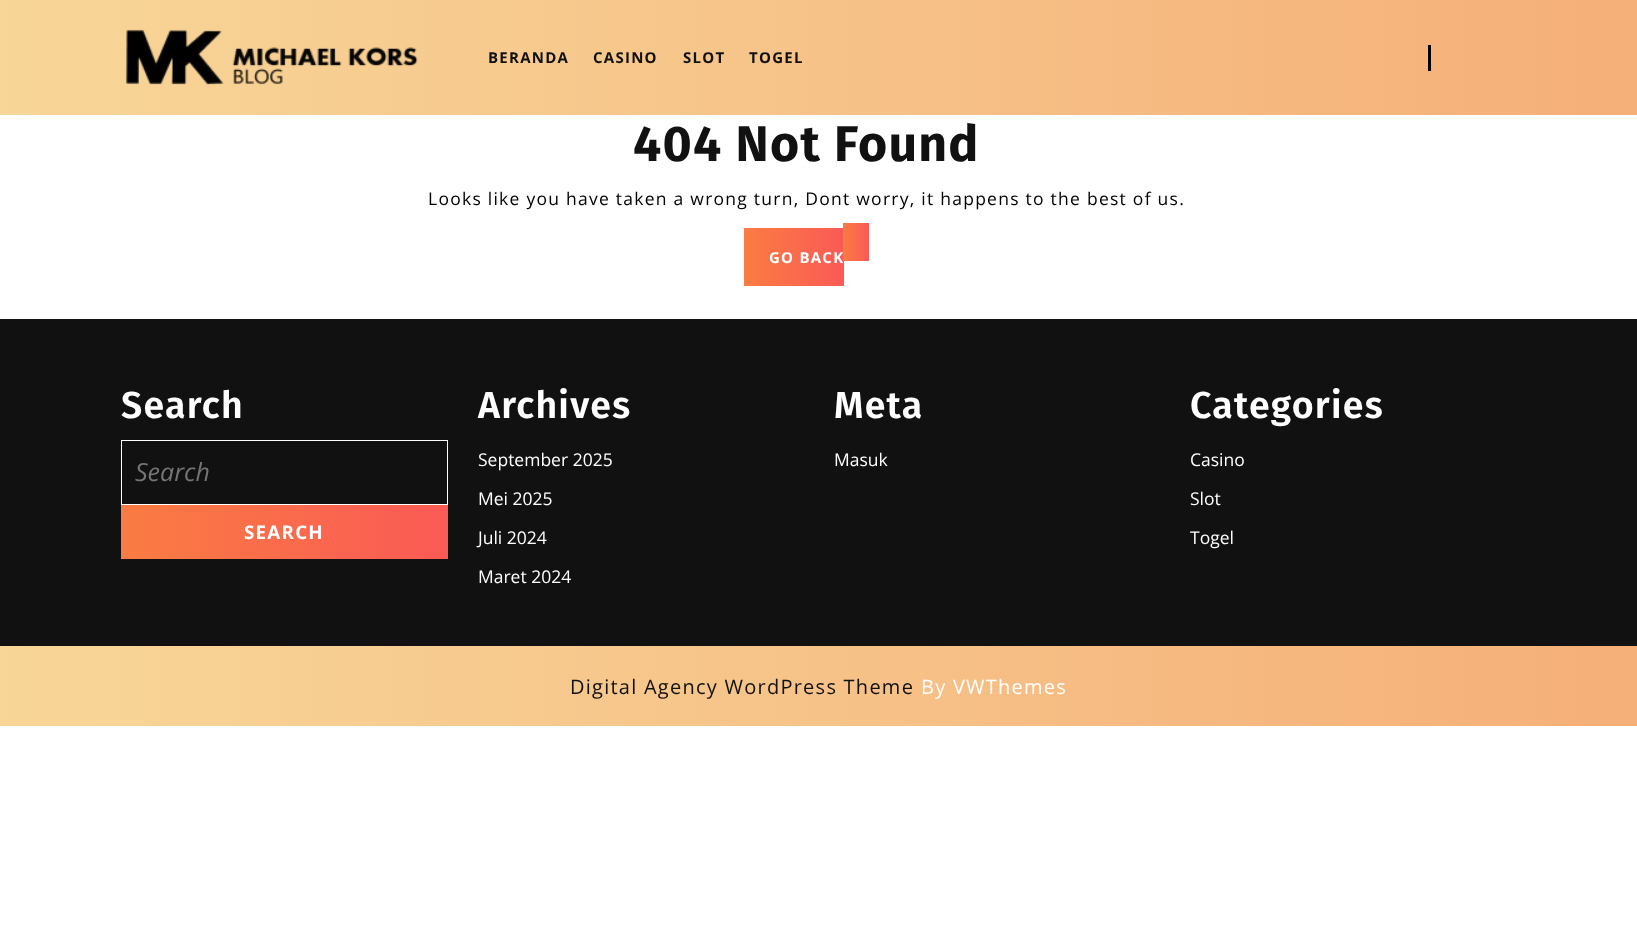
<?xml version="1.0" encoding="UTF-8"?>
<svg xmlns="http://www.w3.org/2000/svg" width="1637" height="926">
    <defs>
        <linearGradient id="g1" gradientUnits="userSpaceOnUse" x1="0" y1="58" x2="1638" y2="57"><stop offset="0" stop-color="#F8D698"/><stop offset="1" stop-color="#F5AF78"/></linearGradient>
        <linearGradient id="g2" gradientUnits="userSpaceOnUse" x1="744" y1="257" x2="844" y2="257"><stop offset="0" stop-color="#FA7C42"/><stop offset="1" stop-color="#FA5A56"/></linearGradient>
        <linearGradient id="g3" gradientUnits="userSpaceOnUse" x1="843" y1="242" x2="869" y2="242"><stop offset="0" stop-color="#FA7C42"/><stop offset="1" stop-color="#FA5A56"/></linearGradient>
        <linearGradient id="g4" gradientUnits="userSpaceOnUse" x1="121" y1="532" x2="448" y2="532"><stop offset="0" stop-color="#FA7C42"/><stop offset="1" stop-color="#FA5A56"/></linearGradient>
        <linearGradient id="g5" gradientUnits="userSpaceOnUse" x1="0" y1="686" x2="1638" y2="686"><stop offset="0" stop-color="#F8D698"/><stop offset="1" stop-color="#F5AF78"/></linearGradient>
    </defs>
    <rect width="100%" height="100%" fill="#FFFFFF"/>
    <rect x="0" y="0" width="1637" height="115" fill="url(#g1)"/>
    <image x="125" y="29" width="293" height="56" href="img_01.png"/>
    <text x="488" y="63" font-family="Open Sans" font-size="15" font-weight="700" letter-spacing="1.25" fill="#111111">BERANDA</text>
    <text x="593" y="63" font-family="Open Sans" font-size="15" font-weight="700" letter-spacing="1.25" fill="#111111">CASINO</text>
    <text x="683" y="63" font-family="Open Sans" font-size="15" font-weight="700" letter-spacing="1.25" fill="#111111">SLOT</text>
    <text x="749" y="63" font-family="Open Sans" font-size="15" font-weight="700" letter-spacing="1.25" fill="#111111">TOGEL</text>
    <rect x="1428" y="45" width="3" height="26" fill="#000000"/>
    <text x="633" y="161" font-family="Fira Sans" font-size="50" font-weight="700" letter-spacing="1.25" fill="#111111">404 Not Found</text>
    <text x="428" y="205" font-family="Open Sans" font-size="17.5" letter-spacing="1.25" fill="#000000">Looks like you have taken a wrong turn, Dont worry, it happens to the best of us.</text>
    <rect x="744" y="228" width="100" height="58" fill="url(#g2)"/>
    <text x="769" y="263" font-family="Open Sans" font-size="15" font-weight="700" letter-spacing="1.25" fill="#FFFFFF">GO BACK</text>
    <rect x="843" y="223" width="26" height="38" fill="url(#g3)"/>
    <rect x="0" y="319" width="1637" height="327" fill="#111111"/>
    <text x="121" y="418" font-family="Fira Sans" font-size="37.5" font-weight="600" letter-spacing="1.25" fill="#FFFFFF">Search</text>
    <rect x="121.5" y="440.5" width="326" height="64" fill="none" stroke="#FFFFFF"/>
    <text x="135" y="481" font-family="Open Sans" font-size="25" font-style="italic" fill="#757575">Search</text>
    <rect x="121" y="505" width="327" height="54" fill="url(#g4)"/>
    <text x="244" y="539" font-family="Open Sans" font-size="18.75" font-weight="700" letter-spacing="1.25" fill="#FFFFFF">SEARCH</text>
    <text x="478" y="418" font-family="Fira Sans" font-size="37.5" font-weight="600" letter-spacing="1.25" fill="#FFFFFF">Archives</text>
    <text x="478" y="466" font-family="Open Sans" font-size="17.5" fill="#FFFFFF">September 2025</text>
    <text x="478" y="505" font-family="Open Sans" font-size="17.5" fill="#FFFFFF">Mei 2025</text>
    <text x="478" y="544" font-family="Open Sans" font-size="17.5" fill="#FFFFFF">Juli 2024</text>
    <text x="478" y="583" font-family="Open Sans" font-size="17.5" fill="#FFFFFF">Maret 2024</text>
    <text x="834" y="418" font-family="Fira Sans" font-size="37.5" font-weight="600" letter-spacing="1.25" fill="#FFFFFF">Meta</text>
    <text x="834" y="466" font-family="Open Sans" font-size="17.5" fill="#FFFFFF">Masuk</text>
    <text x="1190" y="418" font-family="Fira Sans" font-size="37.5" font-weight="600" letter-spacing="1.25" fill="#FFFFFF">Categories</text>
    <text x="1190" y="466" font-family="Open Sans" font-size="17.5" fill="#FFFFFF">Casino</text>
    <text x="1190" y="505" font-family="Open Sans" font-size="17.5" fill="#FFFFFF">Slot</text>
    <text x="1190" y="544" font-family="Open Sans" font-size="17.5" fill="#FFFFFF">Togel</text>
    <rect x="0" y="646" width="1637" height="80" fill="url(#g5)"/>
    <text x="570" y="694" font-family="Open Sans" font-size="20" letter-spacing="1.25" fill="#111111">Digital Agency WordPress Theme</text>
    <text x="921" y="694" font-family="Open Sans" font-size="20" letter-spacing="1.25" fill="#FFFFFF">By VWThemes</text>
</svg>
